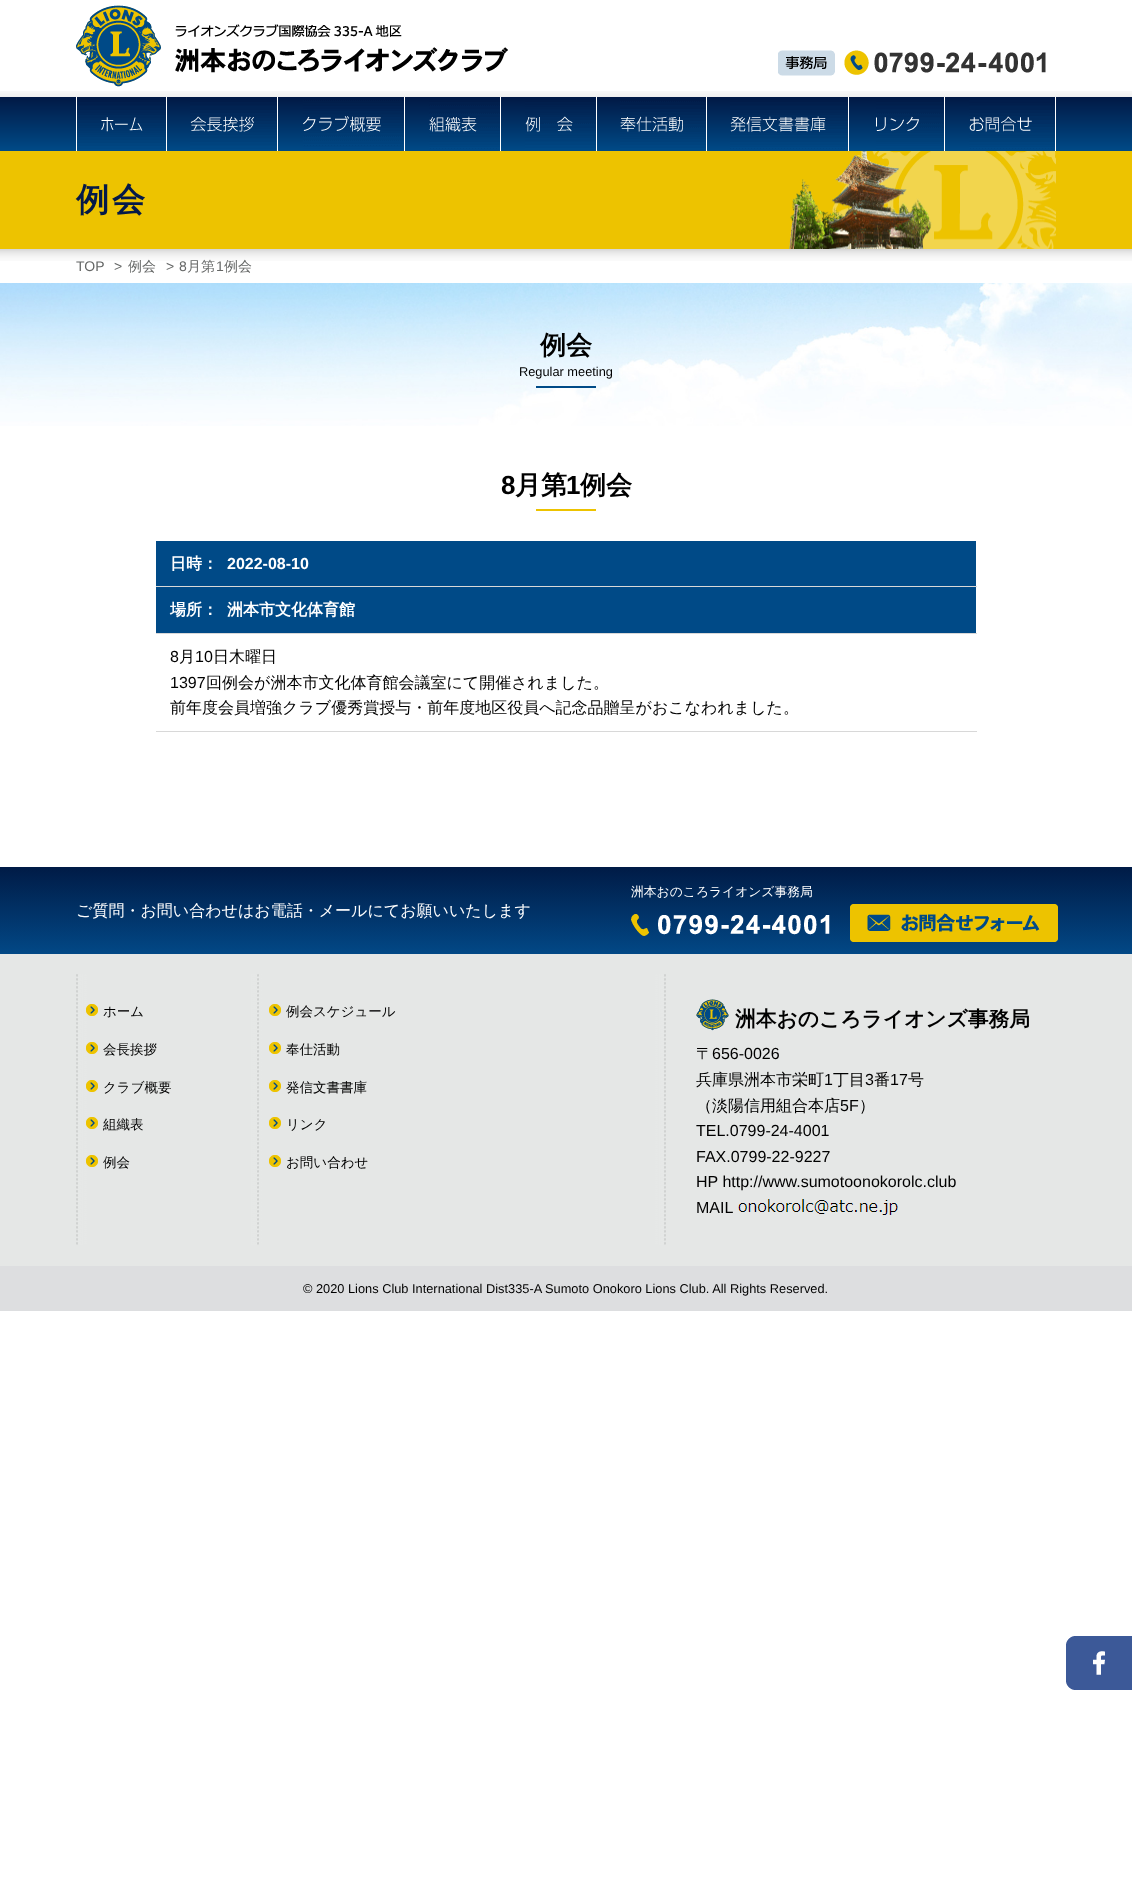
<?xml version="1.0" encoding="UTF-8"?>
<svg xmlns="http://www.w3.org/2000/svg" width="1132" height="1900">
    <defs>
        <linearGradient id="g1" gradientUnits="userSpaceOnUse" x1="566" y1="867" x2="566" y2="954"><stop offset="0" stop-color="#001B46"/><stop offset="1" stop-color="#024886"/></linearGradient>
    </defs>
    <rect width="100%" height="100%" fill="#FFFFFF"/>
    <image x="0" y="91" width="1132" height="6" href="img_01.png"/>
    <image x="76" y="5" width="432" height="82" href="img_02.png"/>
    <image x="778" y="50" width="268" height="26" href="img_03.png"/>
    <image x="0" y="97" width="1132" height="54" href="img_04.png"/>
    <image x="76" y="97" width="91" height="54" href="img_05.png"/>
    <image x="190" y="97" width="88" height="54" href="img_06.png"/>
    <image x="303" y="97" width="102" height="54" href="img_07.png"/>
    <image x="429" y="97" width="72" height="54" href="img_08.png"/>
    <image x="525" y="97" width="72" height="54" href="img_09.png"/>
    <image x="620" y="97" width="87" height="54" href="img_10.png"/>
    <image x="730" y="97" width="119" height="54" href="img_11.png"/>
    <image x="876" y="97" width="69" height="54" href="img_12.png"/>
    <image x="969" y="97" width="87" height="54" href="img_13.png"/>
    <rect x="0" y="151" width="1132" height="98" fill="#EDC300"/>
    <image x="789" y="151" width="267" height="98" href="img_14.png"/>
    <text x="76" y="211" font-family="WenQuanYi Zen Hei" font-size="33" font-weight="700" letter-spacing="3" fill="#041948">例会</text>
    <image x="0" y="249" width="1132" height="12" href="img_15.png"/>
    <text x="76" y="271" font-family="Liberation Sans" font-size="14" fill="#656766">TOP</text>
    <text x="114" y="271" font-family="Liberation Sans" font-size="14" fill="#656766">&gt;</text>
    <text x="128" y="271" font-family="WenQuanYi Zen Hei" font-size="14" font-weight="500" fill="#656766">例会</text>
    <text x="166" y="271" font-family="Liberation Sans" font-size="14" fill="#656766">&gt;</text>
    <text x="179" y="271" font-family="Liberation Sans" font-size="14" fill="#656766">8</text>
    <text x="187" y="271" font-family="WenQuanYi Zen Hei" font-size="14" font-weight="500" fill="#656766">月第</text>
    <text x="216" y="271" font-family="Liberation Sans" font-size="14" fill="#656766">1</text>
    <text x="224" y="271" font-family="WenQuanYi Zen Hei" font-size="14" font-weight="500" fill="#656766">例会</text>
    <image x="0" y="283" width="1132" height="143" href="img_16.png"/>
    <text x="540" y="354" font-family="WenQuanYi Zen Hei" font-size="26" font-weight="700" fill="#000000">例会</text>
    <text x="519" y="376" font-family="Liberation Sans" font-size="12.8" fill="#000000">Regular meeting</text>
    <rect x="536" y="386" width="60" height="2" fill="#004A87"/>
    <text x="501" y="494" font-family="Liberation Sans" font-size="26" font-weight="700" fill="#000000">8</text>
    <text x="515" y="494" font-family="WenQuanYi Zen Hei" font-size="26" font-weight="700" fill="#000000">月第</text>
    <text x="566" y="494" font-family="Liberation Sans" font-size="26" font-weight="700" fill="#000000">1</text>
    <text x="580" y="494" font-family="WenQuanYi Zen Hei" font-size="26" font-weight="700" fill="#000000">例会</text>
    <rect x="536" y="509" width="60" height="2" fill="#EDC300"/>
    <rect x="156" y="541" width="820" height="45" fill="#004A87"/>
    <rect x="156" y="586" width="821" height="1" fill="#D8D8D8"/>
    <text x="170" y="569" font-family="WenQuanYi Zen Hei" font-size="16" font-weight="700" fill="#FFFFFF">日時：</text>
    <text x="227" y="569" font-family="Liberation Sans" font-size="16" font-weight="700" fill="#FFFFFF">2022-08-10</text>
    <rect x="156" y="587" width="820" height="46" fill="#004A87"/>
    <rect x="156" y="633" width="821" height="1" fill="#D8D8D8"/>
    <text x="170" y="615" font-family="WenQuanYi Zen Hei" font-size="16" font-weight="700" fill="#FFFFFF">場所：</text>
    <text x="227" y="615" font-family="WenQuanYi Zen Hei" font-size="16" font-weight="700" fill="#FFFFFF">洲本市文化体育館</text>
    <rect x="156" y="731" width="821" height="1" fill="#D8D8D8"/>
    <text x="170" y="662" font-family="Liberation Sans" font-size="16" fill="#000000">8</text>
    <text x="179" y="662" font-family="WenQuanYi Zen Hei" font-size="16" font-weight="500" fill="#000000">月</text>
    <text x="195" y="662" font-family="Liberation Sans" font-size="16" fill="#000000">10</text>
    <text x="213" y="662" font-family="WenQuanYi Zen Hei" font-size="16" font-weight="500" fill="#000000">日木曜日</text>
    <text x="170" y="688" font-family="Liberation Sans" font-size="16" fill="#000000">1397</text>
    <text x="206" y="688" font-family="WenQuanYi Zen Hei" font-size="16" font-weight="500" fill="#000000">回例会が洲本市文化体育館会議室にて開催されました。</text>
    <text x="170" y="713" font-family="WenQuanYi Zen Hei" font-size="16" font-weight="500" fill="#000000">前年度会員増強クラブ優秀賞授与・前年度地区役員へ記念品贈呈がおこなわれました。</text>
    <rect x="0" y="867" width="1132" height="87" fill="url(#g1)"/>
    <text x="631" y="896" font-family="WenQuanYi Zen Hei" font-size="12.8" font-weight="500" fill="#FFFFFF">洲本おのころライオンズ事務局</text>
    <image x="631" y="914" width="199" height="22" href="img_17.png"/>
    <image x="850" y="904" width="208" height="38" href="img_18.png"/>
    <text x="76" y="916" font-family="WenQuanYi Zen Hei" font-size="16" font-weight="500" fill="#FFFFFF">ご質問・お問い合わせはお電話・メールにてお願いいたします</text>
    <rect x="0" y="954" width="1132" height="312" fill="#E5E7E6"/>
    <image x="76" y="974" width="590" height="271" href="img_19.png"/>
    <image x="86" y="1004" width="12" height="12" href="img_20.png"/>
    <text x="103" y="1016" font-family="WenQuanYi Zen Hei" font-size="13.5" font-weight="500" fill="#000000">ホーム</text>
    <image x="269" y="1004" width="12" height="12" href="img_21.png"/>
    <text x="286" y="1016" font-family="WenQuanYi Zen Hei" font-size="13.5" font-weight="500" fill="#000000">例会スケジュール</text>
    <image x="86" y="1042" width="12" height="12" href="img_20.png"/>
    <text x="103" y="1054" font-family="WenQuanYi Zen Hei" font-size="13.5" font-weight="500" fill="#000000">会長挨拶</text>
    <image x="269" y="1042" width="12" height="12" href="img_21.png"/>
    <text x="286" y="1054" font-family="WenQuanYi Zen Hei" font-size="13.5" font-weight="500" fill="#000000">奉仕活動</text>
    <image x="86" y="1080" width="12" height="12" href="img_20.png"/>
    <text x="103" y="1092" font-family="WenQuanYi Zen Hei" font-size="13.5" font-weight="500" fill="#000000">クラブ概要</text>
    <image x="269" y="1080" width="12" height="12" href="img_21.png"/>
    <text x="286" y="1092" font-family="WenQuanYi Zen Hei" font-size="13.5" font-weight="500" fill="#000000">発信文書書庫</text>
    <image x="86" y="1117" width="12" height="12" href="img_22.png"/>
    <text x="103" y="1129" font-family="WenQuanYi Zen Hei" font-size="13.5" font-weight="500" fill="#000000">組織表</text>
    <image x="269" y="1117" width="12" height="12" href="img_21.png"/>
    <text x="286" y="1129" font-family="WenQuanYi Zen Hei" font-size="13.5" font-weight="500" fill="#000000">リンク</text>
    <image x="86" y="1155" width="12" height="12" href="img_22.png"/>
    <text x="103" y="1167" font-family="WenQuanYi Zen Hei" font-size="13.5" font-weight="500" fill="#000000">例会</text>
    <image x="269" y="1155" width="12" height="12" href="img_21.png"/>
    <text x="286" y="1167" font-family="WenQuanYi Zen Hei" font-size="13.5" font-weight="500" fill="#000000">お問い合わせ</text>
    <image x="696" y="999" width="33" height="32" href="img_23.png"/>
    <text x="735" y="1026" font-family="WenQuanYi Zen Hei" font-size="20.75" font-weight="700" fill="#000000">洲本おのころライオンズ事務局</text>
    <text x="696" y="1059" font-family="WenQuanYi Zen Hei" font-size="16" font-weight="500" fill="#000000">〒</text>
    <text x="712" y="1059" font-family="Liberation Sans" font-size="16" fill="#000000">656-0026</text>
    <text x="696" y="1085" font-family="WenQuanYi Zen Hei" font-size="16" font-weight="500" fill="#000000">兵庫県洲本市栄町</text>
    <text x="824" y="1085" font-family="Liberation Sans" font-size="16" fill="#000000">1</text>
    <text x="833" y="1085" font-family="WenQuanYi Zen Hei" font-size="16" font-weight="500" fill="#000000">丁目</text>
    <text x="865" y="1085" font-family="Liberation Sans" font-size="16" fill="#000000">3</text>
    <text x="874" y="1085" font-family="WenQuanYi Zen Hei" font-size="16" font-weight="500" fill="#000000">番</text>
    <text x="890" y="1085" font-family="Liberation Sans" font-size="16" fill="#000000">17</text>
    <text x="908" y="1085" font-family="WenQuanYi Zen Hei" font-size="16" font-weight="500" fill="#000000">号</text>
    <text x="696" y="1111" font-family="WenQuanYi Zen Hei" font-size="16" font-weight="500" fill="#000000">（淡陽信用組合本店</text>
    <text x="840" y="1111" font-family="Liberation Sans" font-size="16" fill="#000000">5F</text>
    <text x="859" y="1111" font-family="WenQuanYi Zen Hei" font-size="16" font-weight="500" fill="#000000">）</text>
    <text font-family="Liberation Sans" font-size="16" fill="#000000">
        <tspan x="696" y="1136">TEL.0799-24-4001</tspan>
        <tspan x="696" y="1162">FAX.0799-22-9227</tspan>
        <tspan x="696" y="1187">HP http://www.sumotoonokorolc.club</tspan>
        <tspan x="696" y="1213">MAIL</tspan>
    </text>
    <image x="738" y="1199" width="160" height="16" href="img_24.png"/>
    <rect x="0" y="1266" width="1132" height="45" fill="#DDDEE0"/>
    <text x="303" y="1293" font-family="Liberation Sans" font-size="12.8" fill="#000000">© 2020 Lions Club International Dist335-A Sumoto Onokoro Lions Club. All Rights Reserved.</text>
    <image x="1066" y="1636" width="66" height="54" href="img_25.png"/>
</svg>
